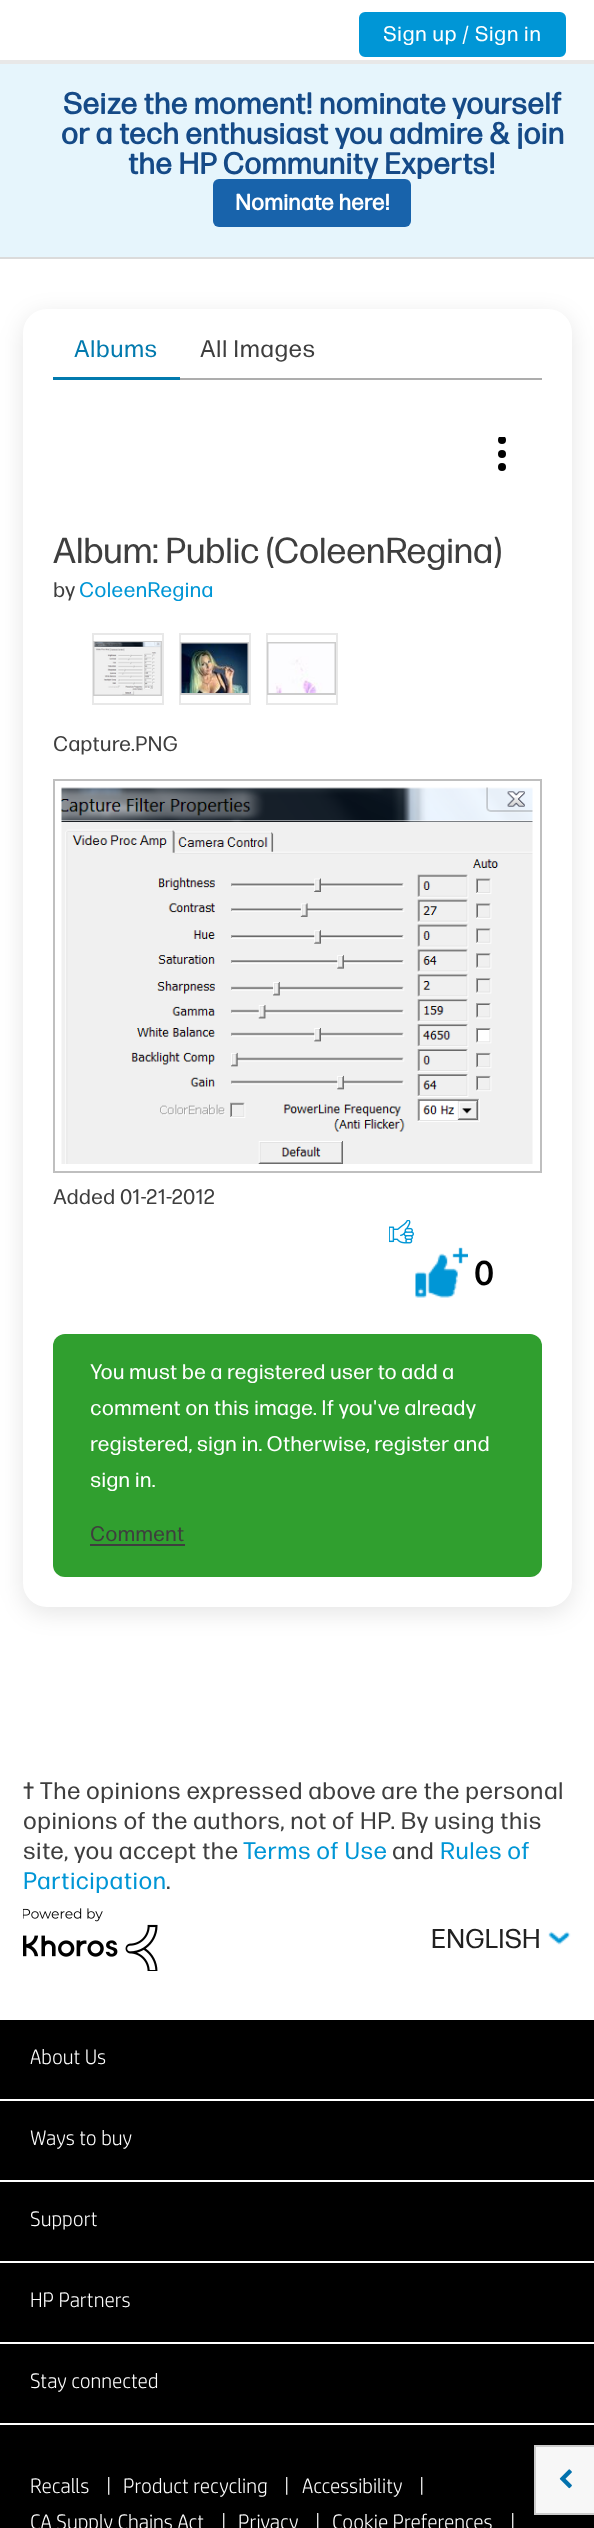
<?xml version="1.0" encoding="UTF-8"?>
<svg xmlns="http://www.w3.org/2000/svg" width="594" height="2528">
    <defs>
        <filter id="blur1" x="-50%" y="-200%" width="200%" height="500%"><feGaussianBlur stdDeviation="12"/></filter>
        <clipPath id="clip1"><rect x="498" y="437" width="8" height="34"/></clipPath>
    </defs>
    <rect width="100%" height="100%" fill="#FFFFFF"/>
    <rect x="0" y="60" width="594" height="4" fill="#E8E8E8"/>
    <rect x="360" y="13" width="205" height="43" rx="5" fill="#0096D6" stroke="#0096D6" stroke-width="2"/>
    <text x="383" y="41" font-family="'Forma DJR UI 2'" font-size="21" letter-spacing="0.4" fill="#FFFFFF">Sign up / Sign in</text>
    <rect x="0" y="2020" width="594" height="508" fill="#000000"/>
    <rect x="536" y="2447" width="58" height="66" fill="#F7F7F7"/>
    <rect x="534" y="2445" width="60" height="2" fill="#CCCCCC"/>
    <rect x="534" y="2513" width="60" height="2" fill="#CCCCCC"/>
    <rect x="534" y="2445" width="2" height="69" fill="#CCCCCC"/>
    <image x="559" y="2469" width="13" height="20" href="img_01.png"/>
    <rect x="0" y="64" width="594" height="193" fill="#E6F5FC"/>
    <rect x="0" y="257" width="594" height="2" fill="#DBDBDB"/>
    <text x="63" y="114" font-family="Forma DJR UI" font-size="30" font-weight="700" letter-spacing="0.5" fill="#154A87">Seize the moment! nominate yourself</text>
    <text x="61" y="144" font-family="Forma DJR UI" font-size="30" font-weight="700" letter-spacing="0.5" fill="#154A87">or a tech enthusiast you admire &amp; join</text>
    <text x="128" y="174" font-family="Forma DJR UI" font-size="30" font-weight="700" letter-spacing="0.5" fill="#154A87">the HP Community Experts!</text>
    <rect x="213" y="179" width="198" height="48" rx="6" fill="#1863AB"/>
    <text x="235" y="210" font-family="'Forma DJR UI 2'" font-size="22.5" font-weight="700" fill="#FFFFFF">Nominate here!</text>
    <rect x="23" y="315" width="549" height="1298" rx="24" fill="#212121" fill-opacity="0.1" filter="url(#blur1)"/>
    <rect x="23" y="309" width="549" height="1298" rx="24" fill="#FFFFFF"/>
    <rect x="180" y="378" width="362" height="2" fill="#ADADAD"/>
    <rect x="53" y="377" width="127" height="3" fill="#027AAE"/>
    <text x="74" y="357" font-family="'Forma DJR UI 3'" font-size="24" letter-spacing="0.5" fill="#027AAE">Albums</text>
    <text x="200" y="357" font-family="'Forma DJR UI 3'" font-size="24" letter-spacing="0.5" fill="#3E3E3E">All Images</text>
    <g clip-path="url(#clip1)">
        <circle cx="502" cy="440" r="4" fill="#000000"/>
    </g>
    <circle cx="502" cy="454" r="4" fill="#000000"/>
    <circle cx="502" cy="467" r="4" fill="#000000"/>
    <text x="53" y="563" font-family="Forma DJR UI" font-size="36" fill="#3E3E3E">Album: Public (ColeenRegina)</text>
    <text x="53" y="597" font-family="'Forma DJR UI 2'" font-size="21" fill="#3E3E3E">by</text>
    <text x="79" y="597" font-family="'Forma DJR UI 2'" font-size="21" fill="#0096D6">ColeenRegina</text>
    <rect x="93" y="634" width="70" height="70" fill="none" stroke="#E8E8E8" stroke-width="2"/>
    <rect x="94" y="642" width="67" height="53" fill="none" stroke="#CCCCCC" stroke-width="2"/>
    <image x="94" y="642" width="67" height="53" href="img_02.png"/>
    <rect x="180" y="634" width="70" height="70" fill="none" stroke="#E8E8E8" stroke-width="2"/>
    <rect x="181" y="643" width="67" height="51" fill="none" stroke="#CCCCCC" stroke-width="2"/>
    <image x="181" y="643" width="67" height="50" href="img_03.png"/>
    <rect x="267" y="634" width="70" height="70" fill="none" stroke="#E8E8E8" stroke-width="2"/>
    <rect x="268" y="643" width="67" height="51" fill="none" stroke="#CCCCCC" stroke-width="2"/>
    <image x="268" y="643" width="67" height="50" href="img_04.png"/>
    <text x="53" y="751" font-family="'Forma DJR UI 2'" font-size="21" fill="#3E3E3E">Capture.PNG</text>
    <rect x="54" y="780" width="487" height="392" fill="none" stroke="#BFBFBF" stroke-width="2"/>
    <image x="61" y="787" width="472" height="377" href="img_05.png"/>
    <text x="53" y="1204" font-family="'Forma DJR UI 2'" font-size="21" fill="#3E3E3E">Added 01-21-2012</text>
    <image x="389" y="1220" width="25" height="24" href="img_06.png"/>
    <image x="415" y="1247" width="53" height="51" href="img_07.png"/>
    <text x="474" y="1285" font-family="'Forma DJR UI 3'" font-size="33" font-weight="700" fill="#000000">0</text>
    <rect x="53" y="1334" width="489" height="243" rx="12" fill="#309F2F"/>
    <text font-family="'Forma DJR UI 2'" font-size="21" fill="#FFFFFF">
        <tspan x="90" y="1379">You must be a registered user to add a</tspan>
        <tspan x="90" y="1415">comment on this image. If you've already</tspan>
        <tspan x="90" y="1451">registered, sign in. Otherwise, register and</tspan>
        <tspan x="90" y="1487">sign in.</tspan>
    </text>
    <text x="90" y="1541" font-family="'Forma DJR UI 2'" font-size="21" fill="#3E3E3E">Comment</text>
    <rect x="90" y="1544" width="95" height="2" fill="#3E3E3E"/>
    <text font-family="'Forma DJR UI 3'" font-size="24" letter-spacing="0.5" fill="#3E3E3E">
        <tspan x="23" y="1799">† The opinions expressed above are the personal</tspan>
        <tspan x="23" y="1829">opinions of the authors, not of HP. By using this</tspan>
        <tspan x="23" y="1859">site, you accept the</tspan>
    </text>
    <text x="243" y="1859" font-family="'Forma DJR UI 3'" font-size="24" letter-spacing="0.5" fill="#0096D6">Terms of Use</text>
    <text x="392" y="1859" font-family="'Forma DJR UI 3'" font-size="24" letter-spacing="0.5" fill="#3E3E3E">and</text>
    <text x="440" y="1859" font-family="'Forma DJR UI 3'" font-size="24" letter-spacing="0.5" fill="#0096D6">Rules of</text>
    <text x="23" y="1889" font-family="'Forma DJR UI 3'" font-size="24" letter-spacing="0.5" fill="#0096D6">Participation</text>
    <text x="166" y="1889" font-family="'Forma DJR UI 3'" font-size="24" letter-spacing="0.5" fill="#3E3E3E">.</text>
    <image x="23" y="1908" width="135" height="63" href="img_08.png"/>
    <image x="548" y="1931" width="23" height="14" href="img_09.png"/>
    <text x="431" y="1948" font-family="'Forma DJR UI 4'" font-size="27" letter-spacing="0.25" fill="#212121">ENGLISH</text>
    <text x="30" y="2064" font-family="'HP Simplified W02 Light'" font-size="21" font-weight="300" fill="#FFFFFF">About Us</text>
    <rect x="0" y="2099" width="594" height="2" fill="#FFFFFF"/>
    <text x="30" y="2145" font-family="'HP Simplified W02 Light'" font-size="21" font-weight="300" fill="#FFFFFF">Ways to buy</text>
    <rect x="0" y="2180" width="594" height="2" fill="#FFFFFF"/>
    <text x="30" y="2226" font-family="'HP Simplified W02 Light'" font-size="21" font-weight="300" fill="#FFFFFF">Support</text>
    <rect x="0" y="2261" width="594" height="2" fill="#FFFFFF"/>
    <text x="30" y="2307" font-family="'HP Simplified W02 Light'" font-size="21" font-weight="300" fill="#FFFFFF">HP Partners</text>
    <rect x="0" y="2342" width="594" height="2" fill="#FFFFFF"/>
    <text x="30" y="2388" font-family="'HP Simplified W02 Light'" font-size="21" font-weight="300" fill="#FFFFFF">Stay connected</text>
    <rect x="0" y="2423" width="594" height="2" fill="#FFFFFF"/>
    <text x="30" y="2493" font-family="'HP Simplified W02 Light'" font-size="21" font-weight="300" fill="#FFFFFF">Recalls</text>
    <text x="106" y="2493" font-family="'HP Simplified W02 Light'" font-size="21" font-weight="300" fill="#FFFFFF">|</text>
    <text x="123" y="2493" font-family="'HP Simplified W02 Light'" font-size="21" font-weight="300" fill="#FFFFFF">Product recycling</text>
    <text x="284" y="2493" font-family="'HP Simplified W02 Light'" font-size="21" font-weight="300" fill="#FFFFFF">|</text>
    <text x="302" y="2493" font-family="'HP Simplified W02 Light'" font-size="21" font-weight="300" fill="#FFFFFF">Accessibility</text>
    <text x="419" y="2493" font-family="'HP Simplified W02 Light'" font-size="21" font-weight="300" fill="#FFFFFF">|</text>
    <text x="30" y="2529" font-family="'HP Simplified W02 Light'" font-size="21" font-weight="300" fill="#FFFFFF">CA Supply Chains Act</text>
    <text x="221" y="2529" font-family="'HP Simplified W02 Light'" font-size="21" font-weight="300" fill="#FFFFFF">|</text>
    <text x="238" y="2529" font-family="'HP Simplified W02 Light'" font-size="21" font-weight="300" fill="#FFFFFF">Privacy</text>
    <text x="315" y="2529" font-family="'HP Simplified W02 Light'" font-size="21" font-weight="300" fill="#FFFFFF">|</text>
    <text x="332" y="2529" font-family="'HP Simplified W02 Light'" font-size="21" font-weight="300" fill="#FFFFFF">Cookie Preferences</text>
    <text x="510" y="2529" font-family="'HP Simplified W02 Light'" font-size="21" font-weight="300" fill="#FFFFFF">|</text>
</svg>
